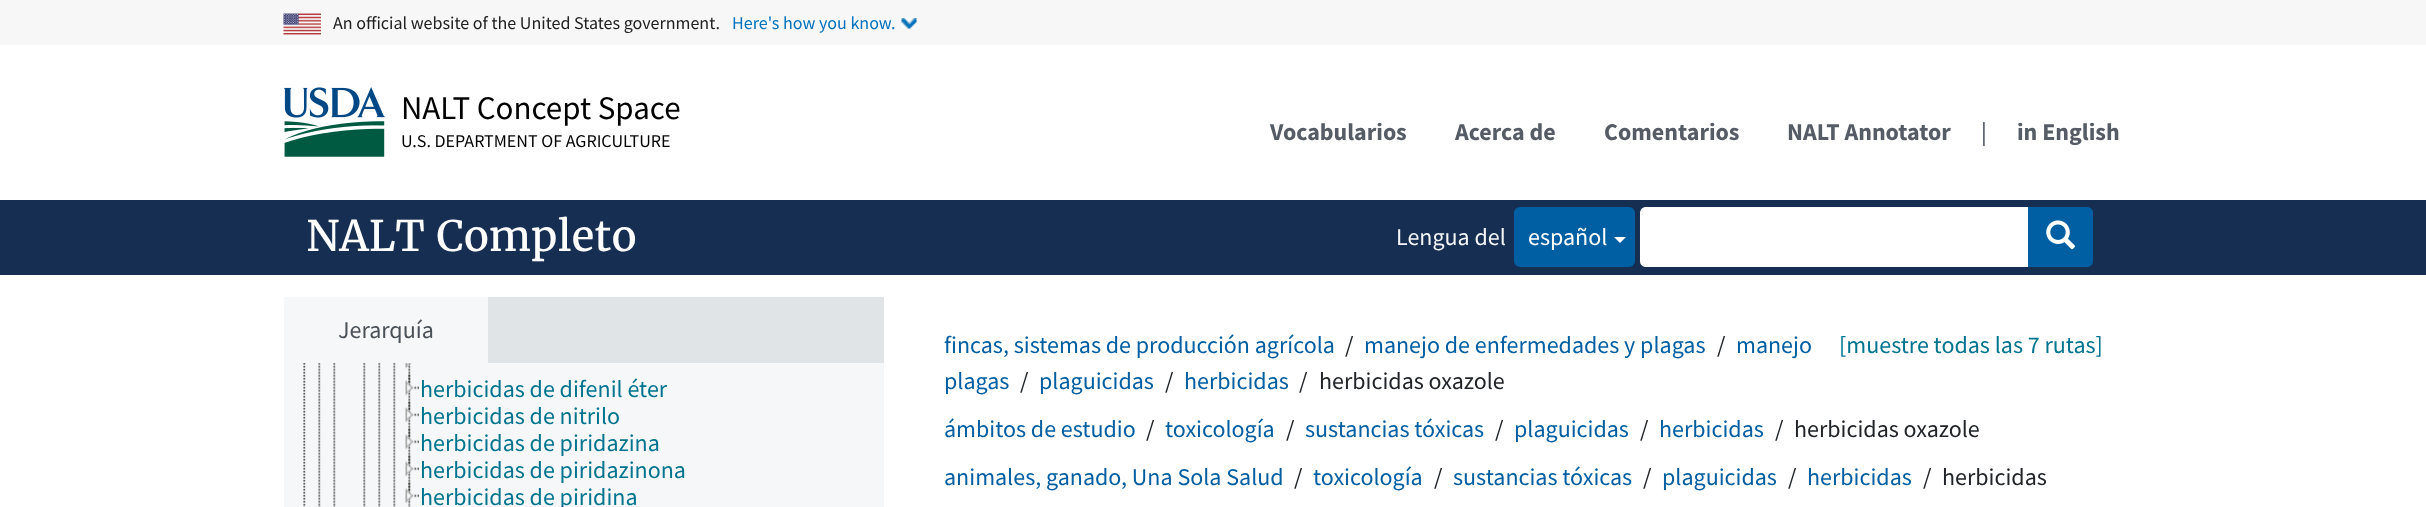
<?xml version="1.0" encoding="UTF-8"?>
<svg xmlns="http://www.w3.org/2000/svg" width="2426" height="507">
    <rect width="100%" height="100%" fill="#FFFFFF"/>
    <rect x="0" y="0" width="2426" height="45" fill="#F7F7F7"/>
    <image x="283" y="13" width="38" height="22" href="img_01.png"/>
    <text x="333" y="29" font-family="Source Sans Pro" font-size="18" fill="#212121">An official website of the United States government.</text>
    <image x="901" y="18" width="16" height="11" href="img_02.png"/>
    <text x="732" y="29" font-family="Source Sans Pro" font-size="18" fill="#0071BC">Here's how you know.</text>
    <image x="284" y="87" width="102" height="70" href="img_03.png"/>
    <text x="401" y="119" font-family="Source Sans Pro" font-size="33" fill="#000000">NALT Concept Space</text>
    <text x="401" y="147" font-family="Source Sans Pro" font-size="18" fill="#000000">U.S. DEPARTMENT OF AGRICULTURE</text>
    <text x="1270" y="140" font-family="Source Sans Pro" font-size="24" font-weight="700" fill="#565C65">Vocabularios</text>
    <text x="1455" y="140" font-family="Source Sans Pro" font-size="24" font-weight="700" fill="#565C65">Acerca de</text>
    <text x="1604" y="140" font-family="Source Sans Pro" font-size="24" font-weight="700" fill="#565C65">Comentarios</text>
    <text x="1787" y="140" font-family="Source Sans Pro" font-size="24" font-weight="700" fill="#565C65">NALT Annotator</text>
    <text x="1981" y="140" font-family="Source Sans Pro" font-size="24" fill="#394554">|</text>
    <text x="2017" y="140" font-family="Source Sans Pro" font-size="24" font-weight="700" fill="#565C65">in English</text>
    <rect x="0" y="200" width="2426" height="75" fill="#162E51"/>
    <text x="306" y="251" font-family="Merriweather" font-size="42" fill="#FFFFFF">NALT Completo</text>
    <text x="1396" y="245" font-family="Source Sans Pro" font-size="24" fill="#F3F5F6">Lengua del</text>
    <rect x="1514" y="207" width="121" height="60" rx="6" fill="#005EA2"/>
    <text x="1528" y="245" font-family="Source Sans Pro" font-size="24" fill="#FFFFFF">español</text>
    <path d="M 1614 237 H 1626 L 1620 243 Z" fill="#FFFFFF"/>
    <path d="M 1646 207 H 2030 V 267 H 1646 C 1642.5 267 1640 264.5 1640 261 V 213 C 1640 209.5 1642.5 207 1646 207 Z" fill="#FFFFFF"/>
    <path d="M 2028 207 H 2087 C 2090.5 207 2093 209.5 2093 213 V 261 C 2093 264.5 2090.5 267 2087 267 H 2028 Z" fill="#005EA2"/>
    <image x="2046" y="220" width="29" height="30" href="img_04.png"/>
    <rect x="488" y="297" width="396" height="66" fill="#E0E4E7"/>
    <rect x="284" y="297" width="204" height="66" fill="#F6F7F8"/>
    <text x="338" y="338" font-family="Source Sans Pro" font-size="24" fill="#495057">Jerarquía</text>
    <rect x="284" y="363" width="600" height="144" fill="#F6F7F8"/>
    <image x="303" y="363" width="3" height="144" href="img_05.png"/>
    <image x="318" y="363" width="3" height="144" href="img_06.png"/>
    <image x="333" y="363" width="3" height="144" href="img_07.png"/>
    <image x="363" y="363" width="3" height="144" href="img_07.png"/>
    <image x="378" y="363" width="3" height="144" href="img_07.png"/>
    <image x="393" y="363" width="3" height="144" href="img_08.png"/>
    <image x="408" y="363" width="3" height="12" href="img_09.png"/>
    <image x="405" y="363" width="7" height="6" href="img_10.png"/>
    <image x="408" y="374" width="3" height="28" href="img_11.png"/>
    <image x="405" y="374" width="14" height="22" href="img_12.png"/>
    <text x="420" y="397" font-family="Source Sans Pro" font-size="24" fill="#00748F">herbicidas de difenil éter</text>
    <image x="408" y="401" width="3" height="28" href="img_11.png"/>
    <image x="405" y="401" width="14" height="22" href="img_12.png"/>
    <text x="420" y="424" font-family="Source Sans Pro" font-size="24" fill="#00748F">herbicidas de nitrilo</text>
    <image x="408" y="428" width="3" height="28" href="img_11.png"/>
    <image x="405" y="428" width="14" height="22" href="img_12.png"/>
    <text x="420" y="451" font-family="Source Sans Pro" font-size="24" fill="#00748F">herbicidas de piridazina</text>
    <image x="408" y="455" width="3" height="28" href="img_11.png"/>
    <image x="405" y="455" width="14" height="22" href="img_12.png"/>
    <text x="420" y="478" font-family="Source Sans Pro" font-size="24" fill="#00748F">herbicidas de piridazinona</text>
    <image x="408" y="482" width="3" height="25" href="img_13.png"/>
    <image x="405" y="482" width="14" height="22" href="img_12.png"/>
    <text x="420" y="505" font-family="Source Sans Pro" font-size="24" fill="#00748F">herbicidas de piridina</text>
    <text x="944" y="353" font-family="Source Sans Pro" font-size="24" fill="#005EA2">fincas, sistemas de producción agrícola</text>
    <text x="1345" y="353" font-family="Source Sans Pro" font-size="24" fill="#212529">/</text>
    <text x="1364" y="353" font-family="Source Sans Pro" font-size="24" fill="#005EA2">manejo de enfermedades y plagas</text>
    <text x="1717" y="353" font-family="Source Sans Pro" font-size="24" fill="#212529">/</text>
    <text x="1736" y="353" font-family="Source Sans Pro" font-size="24" fill="#005EA2">manejo</text>
    <text x="944" y="389" font-family="Source Sans Pro" font-size="24" fill="#005EA2">plagas</text>
    <text x="1020" y="389" font-family="Source Sans Pro" font-size="24" fill="#212529">/</text>
    <text x="1039" y="389" font-family="Source Sans Pro" font-size="24" fill="#005EA2">plaguicidas</text>
    <text x="1165" y="389" font-family="Source Sans Pro" font-size="24" fill="#212529">/</text>
    <text x="1184" y="389" font-family="Source Sans Pro" font-size="24" fill="#005EA2">herbicidas</text>
    <text x="1299" y="389" font-family="Source Sans Pro" font-size="24" fill="#212529">/</text>
    <text x="1319" y="389" font-family="Source Sans Pro" font-size="24" fill="#212529">herbicidas oxazole</text>
    <text x="1839" y="353" font-family="Source Sans Pro" font-size="24" fill="#00748F">[muestre todas las 7 rutas]</text>
    <text x="944" y="437" font-family="Source Sans Pro" font-size="24" fill="#005EA2">ámbitos de estudio</text>
    <text x="1146" y="437" font-family="Source Sans Pro" font-size="24" fill="#212529">/</text>
    <text x="1165" y="437" font-family="Source Sans Pro" font-size="24" fill="#005EA2">toxicología</text>
    <text x="1286" y="437" font-family="Source Sans Pro" font-size="24" fill="#212529">/</text>
    <text x="1305" y="437" font-family="Source Sans Pro" font-size="24" fill="#005EA2">sustancias tóxicas</text>
    <text x="1495" y="437" font-family="Source Sans Pro" font-size="24" fill="#212529">/</text>
    <text x="1514" y="437" font-family="Source Sans Pro" font-size="24" fill="#005EA2">plaguicidas</text>
    <text x="1640" y="437" font-family="Source Sans Pro" font-size="24" fill="#212529">/</text>
    <text x="1659" y="437" font-family="Source Sans Pro" font-size="24" fill="#005EA2">herbicidas</text>
    <text x="1775" y="437" font-family="Source Sans Pro" font-size="24" fill="#212529">/</text>
    <text x="1794" y="437" font-family="Source Sans Pro" font-size="24" fill="#212529">herbicidas oxazole</text>
    <text x="944" y="485" font-family="Source Sans Pro" font-size="24" fill="#005EA2">animales, ganado, Una Sola Salud</text>
    <text x="1294" y="485" font-family="Source Sans Pro" font-size="24" fill="#212529">/</text>
    <text x="1313" y="485" font-family="Source Sans Pro" font-size="24" fill="#005EA2">toxicología</text>
    <text x="1434" y="485" font-family="Source Sans Pro" font-size="24" fill="#212529">/</text>
    <text x="1453" y="485" font-family="Source Sans Pro" font-size="24" fill="#005EA2">sustancias tóxicas</text>
    <text x="1643" y="485" font-family="Source Sans Pro" font-size="24" fill="#212529">/</text>
    <text x="1662" y="485" font-family="Source Sans Pro" font-size="24" fill="#005EA2">plaguicidas</text>
    <text x="1788" y="485" font-family="Source Sans Pro" font-size="24" fill="#212529">/</text>
    <text x="1807" y="485" font-family="Source Sans Pro" font-size="24" fill="#005EA2">herbicidas</text>
    <text x="1923" y="485" font-family="Source Sans Pro" font-size="24" fill="#212529">/</text>
    <text x="1942" y="485" font-family="Source Sans Pro" font-size="24" fill="#212529">herbicidas</text>
</svg>
